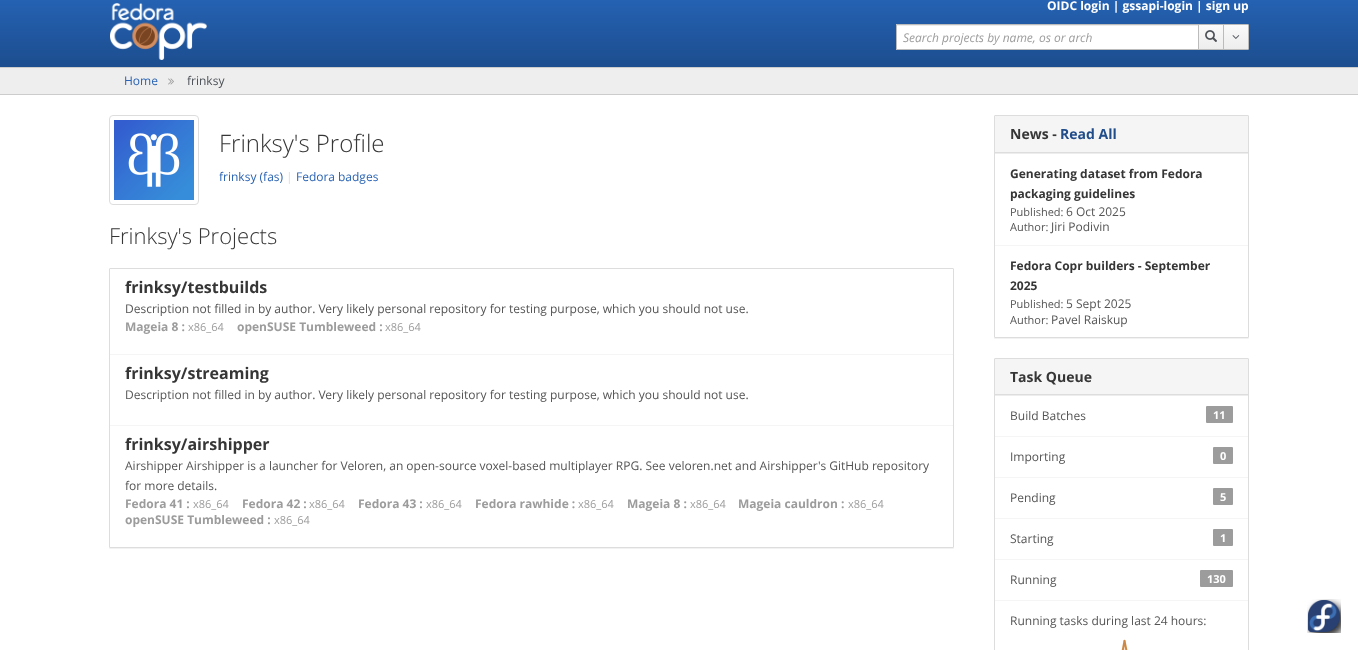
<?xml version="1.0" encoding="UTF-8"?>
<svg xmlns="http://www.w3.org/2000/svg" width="1358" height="650">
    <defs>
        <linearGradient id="g1" gradientUnits="userSpaceOnUse" x1="1211" y1="25" x2="1211" y2="49"><stop offset="0" stop-color="#FAFAFA"/><stop offset="1" stop-color="#EDEDED"/></linearGradient>
        <linearGradient id="g2" gradientUnits="userSpaceOnUse" x1="1236" y1="25" x2="1236" y2="49"><stop offset="0" stop-color="#FAFAFA"/><stop offset="1" stop-color="#EDEDED"/></linearGradient>
        <filter id="blur1" x="-50%" y="-200%" width="200%" height="500%"><feGaussianBlur stdDeviation="0.5"/></filter>
    </defs>
    <rect width="100%" height="100%" fill="#EEEEEE"/>
    <image x="0" y="0" width="1358" height="67" href="img_01.png"/>
    <image x="110" y="3" width="97" height="57" href="img_02.png"/>
    <text x="1047" y="10" font-family="Open Sans" font-size="12" font-weight="700" fill="#FFFFFF">OIDC login | gssapi-login | sign up</text>
    <path d="M 897 24 H 1199 V 50 H 897 C 896.5 50 896 49.5 896 49 V 25 C 896 24.5 896.5 24 897 24 Z" fill="#FFFFFF"/>
    <rect x="897" y="25" width="301" height="1" fill="#ECECEC"/>
    <path d="M 897 24.5 H 1198.5 V 49.5 H 897 C 896.5 49.5 896.5 49.5 896.5 49 V 25 C 896.5 24.5 896.5 24.5 897 24.5 Z" fill="none" stroke="#BBBBBB"/>
    <text x="903" y="42" font-family="Open Sans" font-size="12" font-style="italic" fill="#9C9C9C">Search projects by name, os or arch</text>
    <rect x="1199" y="25" width="24" height="24" fill="url(#g1)"/>
    <rect x="1198.5" y="24.5" width="25" height="25" fill="none" stroke="#BBBBBB"/>
    <image x="1205" y="30" width="12" height="12" href="img_03.png"/>
    <rect x="1224" y="25" width="24" height="24" fill="url(#g2)"/>
    <path d="M 1223.5 24.5 H 1248 C 1248.5 24.5 1248.5 24.5 1248.5 25 V 49 C 1248.5 49.5 1248.5 49.5 1248 49.5 H 1223.5 Z" fill="none" stroke="#BBBBBB"/>
    <image x="1232" y="35" width="8" height="4" href="img_04.png"/>
    <rect x="0" y="67" width="1358" height="1" fill="#CCCCCC"/>
    <rect x="0" y="94" width="1358" height="1" fill="#CCCCCC"/>
    <text x="124" y="85" font-family="Open Sans" font-size="12" fill="#2B64B4">Home</text>
    <image x="168" y="78" width="6" height="7" href="img_05.png"/>
    <text x="187" y="85" font-family="Open Sans" font-size="12" fill="#4D5258">frinksy</text>
    <rect x="0" y="95" width="1358" height="555" fill="#FFFFFF"/>
    <rect x="109.5" y="115.5" width="89" height="89" rx="3.5" fill="none" stroke="#DDDDDD"/>
    <image x="114" y="120" width="80" height="80" href="img_06.png"/>
    <text x="219" y="152" font-family="Open Sans" font-size="24" font-weight="300" fill="#363636">Frinksy's Profile</text>
    <text x="219" y="181" font-family="Open Sans" font-size="12" fill="#2B64B4">frinksy (fas)</text>
    <text x="286" y="181" font-family="Open Sans" font-size="12" fill="#DDDDDD">|</text>
    <text x="296" y="181" font-family="Open Sans" font-size="12" fill="#2B64B4">Fedora badges</text>
    <text x="109" y="244" font-family="Open Sans" font-size="22" font-weight="300" fill="#363636">Frinksy's Projects</text>
    <rect x="109" y="269" width="845" height="280" rx="1" fill="#000000" fill-opacity="0.05" filter="url(#blur1)"/>
    <rect x="109.5" y="268.5" width="844" height="279" rx="0.5" fill="#FFFFFF" stroke="#DDDDDD"/>
    <text x="125" y="293" font-family="Open Sans" font-size="16" font-weight="700" fill="#363636">frinksy/testbuilds</text>
    <text x="125" y="313" font-family="Open Sans" font-size="12" fill="#555555">Description not filled in by author. Very likely personal repository for testing purpose, which you should not use.</text>
    <text x="125" y="331" font-family="Open Sans" font-size="12" font-weight="700" fill="#9C9C9C">Mageia 8 :</text>
    <text x="188" y="331" font-family="Open Sans" font-size="11" fill="#9C9C9C">x86_64</text>
    <text x="237" y="331" font-family="Open Sans" font-size="12" font-weight="700" fill="#9C9C9C">openSUSE Tumbleweed :</text>
    <text x="385" y="331" font-family="Open Sans" font-size="11" fill="#9C9C9C">x86_64</text>
    <rect x="110" y="354" width="843" height="1" fill="#F5F5F5"/>
    <text x="125" y="379" font-family="Open Sans" font-size="16" font-weight="700" fill="#363636">frinksy/streaming</text>
    <text x="125" y="399" font-family="Open Sans" font-size="12" fill="#555555">Description not filled in by author. Very likely personal repository for testing purpose, which you should not use.</text>
    <rect x="110" y="425" width="843" height="1" fill="#F5F5F5"/>
    <text x="125" y="450" font-family="Open Sans" font-size="16" font-weight="700" fill="#363636">frinksy/airshipper</text>
    <text font-family="Open Sans" font-size="12" fill="#555555">
        <tspan x="125" y="470">Airshipper Airshipper is a launcher for Veloren, an open-source voxel-based multiplayer RPG. See veloren.net and Airshipper's GitHub repository</tspan>
        <tspan x="125" y="490">for more details.</tspan>
    </text>
    <text x="125" y="508" font-family="Open Sans" font-size="12" font-weight="700" fill="#9C9C9C">Fedora 41 :</text>
    <text x="193" y="508" font-family="Open Sans" font-size="11" fill="#9C9C9C">x86_64</text>
    <text x="242" y="508" font-family="Open Sans" font-size="12" font-weight="700" fill="#9C9C9C">Fedora 42 :</text>
    <text x="309" y="508" font-family="Open Sans" font-size="11" fill="#9C9C9C">x86_64</text>
    <text x="358" y="508" font-family="Open Sans" font-size="12" font-weight="700" fill="#9C9C9C">Fedora 43 :</text>
    <text x="426" y="508" font-family="Open Sans" font-size="11" fill="#9C9C9C">x86_64</text>
    <text x="475" y="508" font-family="Open Sans" font-size="12" font-weight="700" fill="#9C9C9C">Fedora rawhide :</text>
    <text x="578" y="508" font-family="Open Sans" font-size="11" fill="#9C9C9C">x86_64</text>
    <text x="627" y="508" font-family="Open Sans" font-size="12" font-weight="700" fill="#9C9C9C">Mageia 8 :</text>
    <text x="690" y="508" font-family="Open Sans" font-size="11" fill="#9C9C9C">x86_64</text>
    <text x="738" y="508" font-family="Open Sans" font-size="12" font-weight="700" fill="#9C9C9C">Mageia cauldron :</text>
    <text x="848" y="508" font-family="Open Sans" font-size="11" fill="#9C9C9C">x86_64</text>
    <text x="125" y="524" font-family="Open Sans" font-size="12" font-weight="700" fill="#9C9C9C">openSUSE Tumbleweed :</text>
    <text x="274" y="524" font-family="Open Sans" font-size="11" fill="#9C9C9C">x86_64</text>
    <rect x="994" y="116" width="255" height="223" rx="1" fill="#000000" fill-opacity="0.05" filter="url(#blur1)"/>
    <rect x="994.5" y="115.5" width="254" height="222" rx="0.5" fill="#FFFFFF" stroke="#DDDDDD"/>
    <rect x="995" y="116" width="253" height="36" fill="#F5F5F5"/>
    <rect x="995" y="152" width="253" height="1" fill="#DDDDDD"/>
    <text x="1010" y="139" font-family="Open Sans" font-size="14" font-weight="700" fill="#363636">News -</text>
    <text x="1060" y="139" font-family="Open Sans" font-size="14" font-weight="700" fill="#214D8B">Read All</text>
    <rect x="995" y="153" width="253" height="1" fill="#EDEDED"/>
    <text font-family="Open Sans" font-size="12" font-weight="700" fill="#363636">
        <tspan x="1010" y="178">Generating dataset from Fedora</tspan>
        <tspan x="1010" y="198">packaging guidelines</tspan>
    </text>
    <text x="1010" y="216" font-family="Open Sans" font-size="11" fill="#555555">Published:</text>
    <text x="1066" y="216" font-family="Open Sans" font-size="12" fill="#555555">6 Oct 2025</text>
    <text x="1010" y="231" font-family="Open Sans" font-size="11" fill="#555555">Author:</text>
    <text x="1051" y="231" font-family="Open Sans" font-size="12" fill="#555555">Jiri Podivin</text>
    <rect x="995" y="245" width="253" height="1" fill="#F5F5F5"/>
    <text font-family="Open Sans" font-size="12" font-weight="700" fill="#363636">
        <tspan x="1010" y="270">Fedora Copr builders - September</tspan>
        <tspan x="1010" y="290">2025</tspan>
    </text>
    <text x="1010" y="308" font-family="Open Sans" font-size="11" fill="#555555">Published:</text>
    <text x="1066" y="308" font-family="Open Sans" font-size="12" fill="#555555">5 Sept 2025</text>
    <text x="1010" y="324" font-family="Open Sans" font-size="11" fill="#555555">Author:</text>
    <text x="1051" y="324" font-family="Open Sans" font-size="12" fill="#555555">Pavel Raiskup</text>
    <rect x="994.5" y="358.5" width="254" height="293" rx="0.5" fill="none" stroke="#DDDDDD"/>
    <rect x="995" y="359" width="253" height="35" fill="#F5F5F5"/>
    <rect x="995" y="394" width="253" height="1" fill="#DDDDDD"/>
    <text x="1010" y="382" font-family="Open Sans" font-size="14" font-weight="700" fill="#363636">Task Queue</text>
    <rect x="995" y="395" width="253" height="1" fill="#EDEDED"/>
    <text x="1010" y="420" font-family="Open Sans" font-size="12" fill="#555555">Build Batches</text>
    <rect x="1206" y="406" width="27" height="17" rx="1" fill="#9C9C9C"/>
    <text x="1213" y="419" font-family="Open Sans" font-size="11" font-weight="700" fill="#FFFFFF">11</text>
    <rect x="995" y="436" width="253" height="1" fill="#F5F5F5"/>
    <text x="1010" y="461" font-family="Open Sans" font-size="12" fill="#555555">Importing</text>
    <rect x="1213" y="447" width="20" height="17" rx="1" fill="#9C9C9C"/>
    <text x="1220" y="460" font-family="Open Sans" font-size="11" font-weight="700" fill="#FFFFFF">0</text>
    <rect x="995" y="477" width="253" height="1" fill="#F5F5F5"/>
    <text x="1010" y="502" font-family="Open Sans" font-size="12" fill="#555555">Pending</text>
    <rect x="1213" y="488" width="20" height="17" rx="1" fill="#9C9C9C"/>
    <text x="1220" y="501" font-family="Open Sans" font-size="11" font-weight="700" fill="#FFFFFF">5</text>
    <rect x="995" y="518" width="253" height="1" fill="#F5F5F5"/>
    <text x="1010" y="543" font-family="Open Sans" font-size="12" fill="#555555">Starting</text>
    <rect x="1213" y="529" width="20" height="17" rx="1" fill="#9C9C9C"/>
    <text x="1220" y="542" font-family="Open Sans" font-size="11" font-weight="700" fill="#FFFFFF">1</text>
    <rect x="995" y="559" width="253" height="1" fill="#F5F5F5"/>
    <text x="1010" y="584" font-family="Open Sans" font-size="12" fill="#555555">Running</text>
    <rect x="1200" y="570" width="33" height="17" rx="1" fill="#9C9C9C"/>
    <text x="1207" y="583" font-family="Open Sans" font-size="11" font-weight="700" fill="#FFFFFF">130</text>
    <rect x="995" y="600" width="253" height="1" fill="#F5F5F5"/>
    <text x="1010" y="625" font-family="Open Sans" font-size="12" fill="#555555">Running tasks during last 24 hours:</text>
    <image x="1121" y="639" width="7" height="11" href="img_07.png"/>
    <image x="1307" y="599" width="34" height="34" href="img_08.png"/>
</svg>
